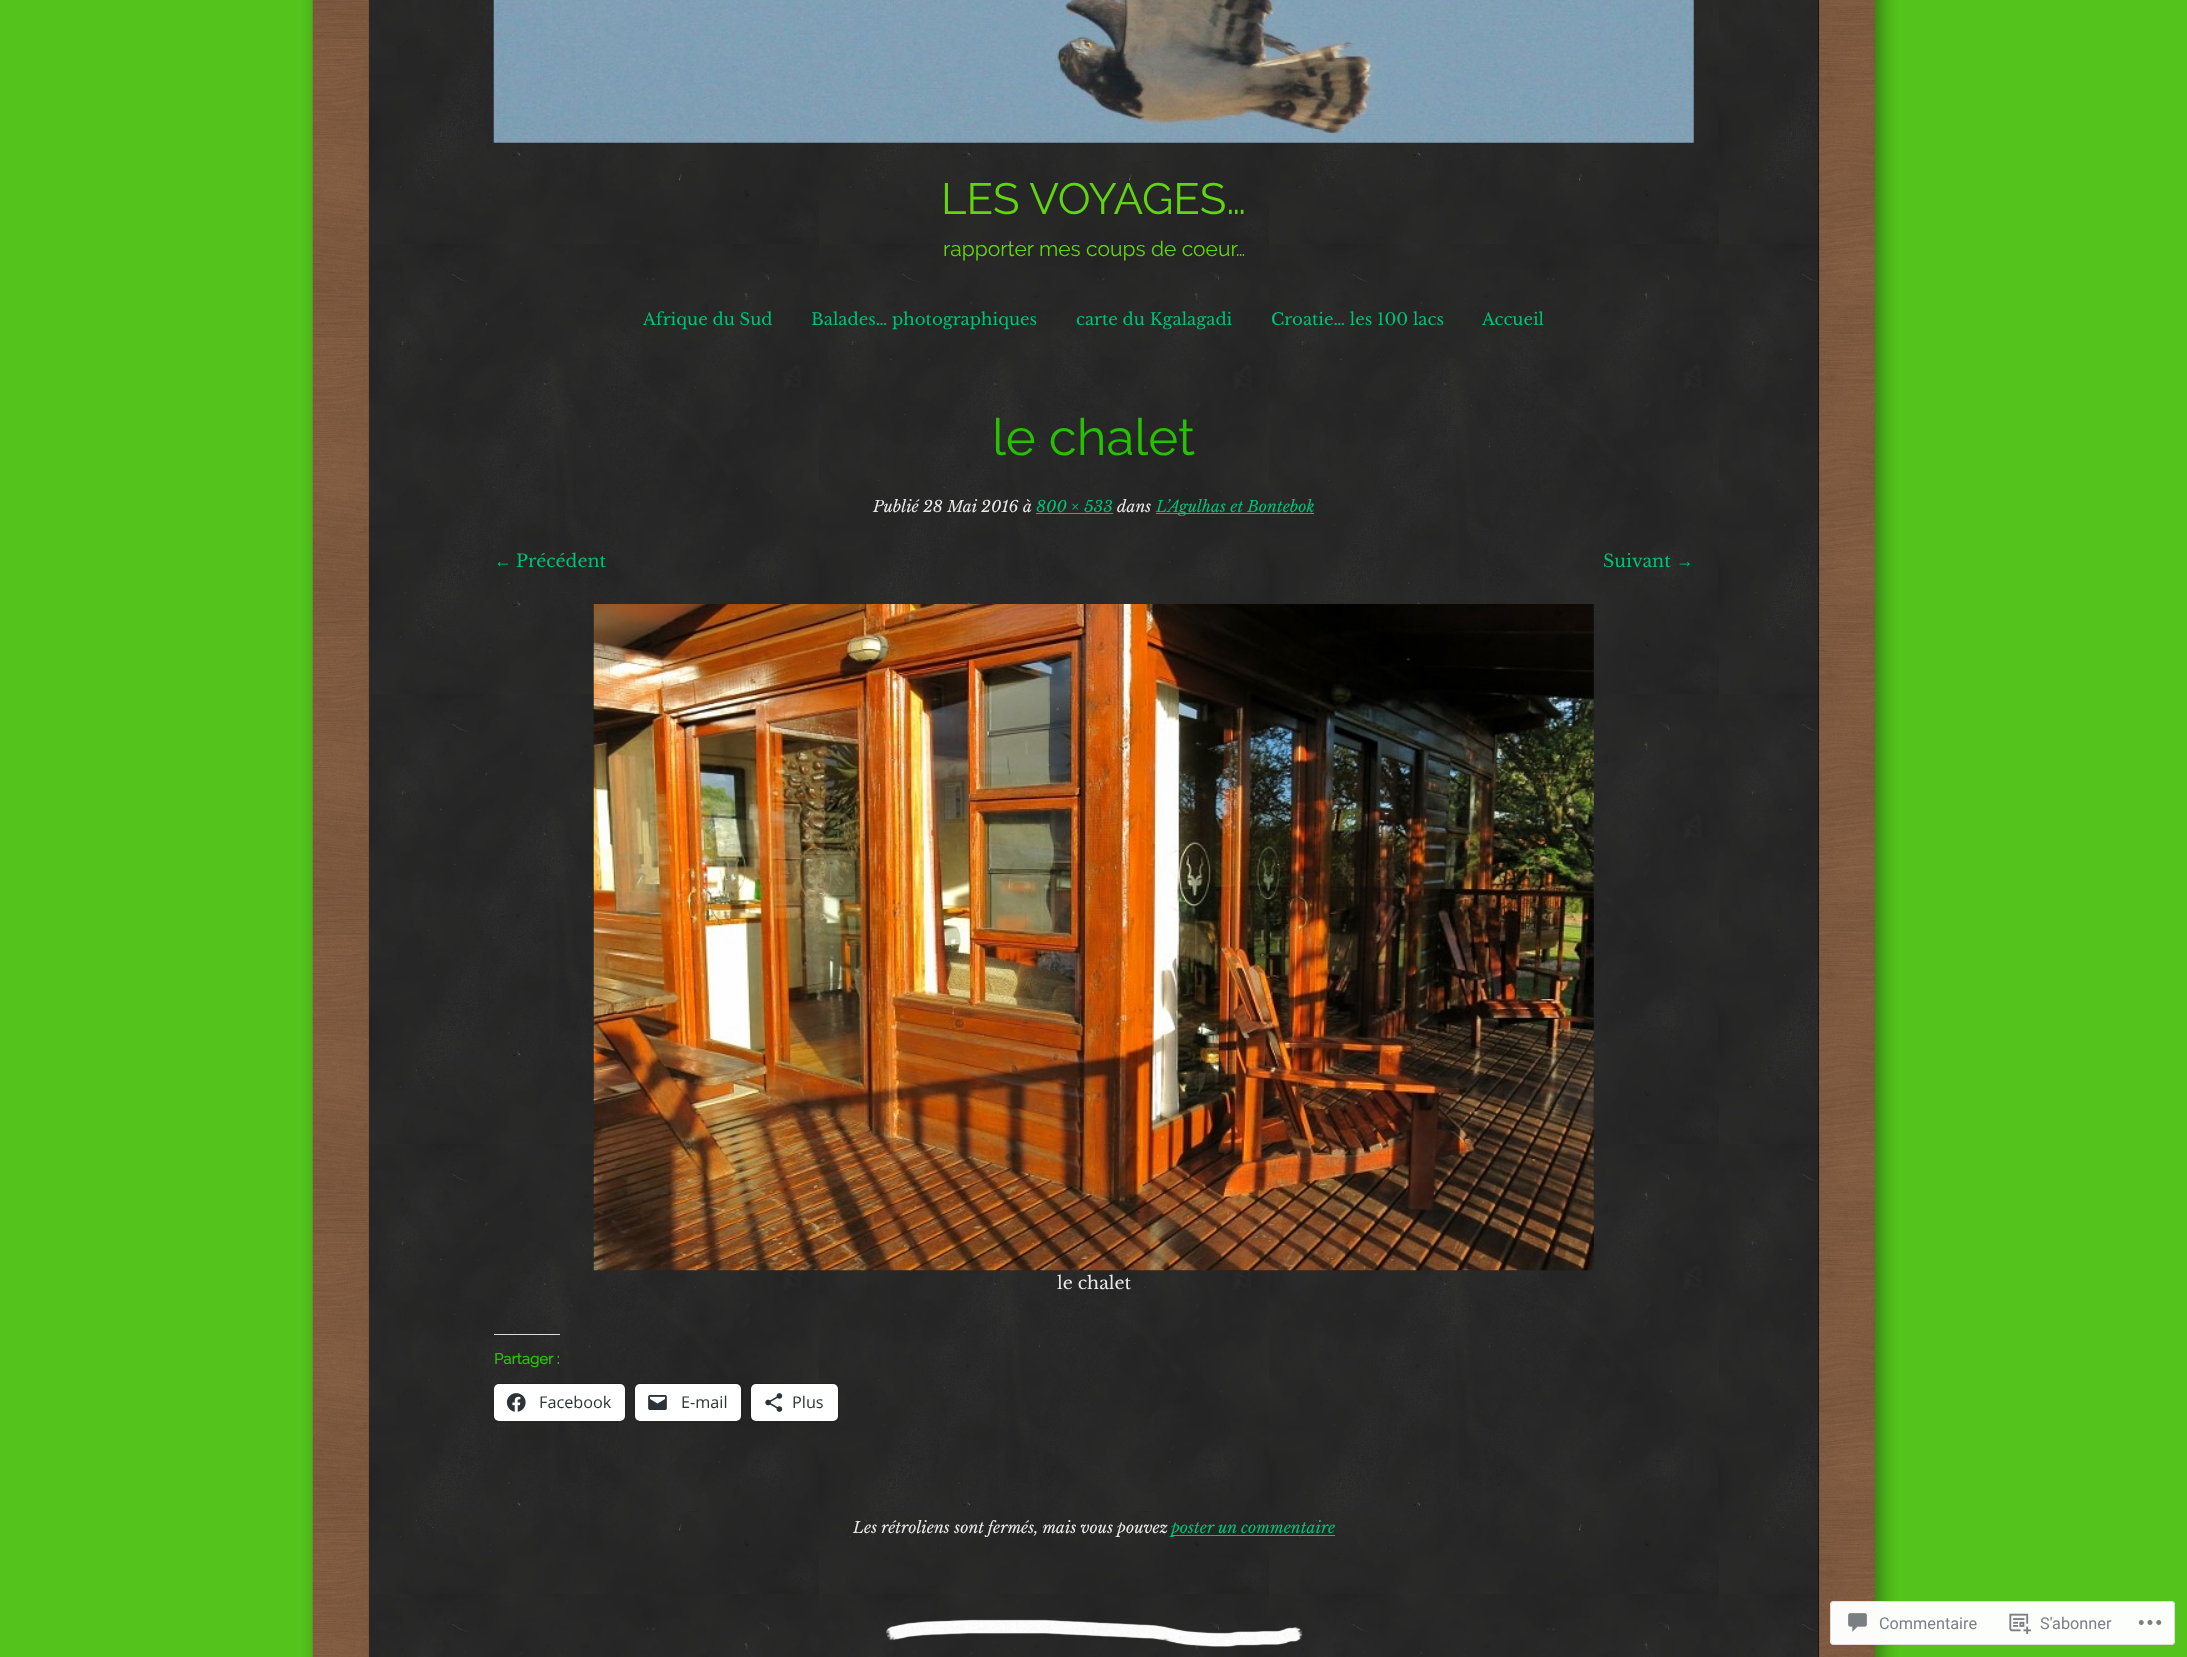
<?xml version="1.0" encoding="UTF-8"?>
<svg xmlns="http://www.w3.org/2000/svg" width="2187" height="1657">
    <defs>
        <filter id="blur1" x="-50%" y="-200%" width="200%" height="500%"><feGaussianBlur stdDeviation="9.5"/></filter>
        <clipPath id="clip1"><rect x="494" y="604" width="1200" height="912"/></clipPath>
    </defs>
    <rect width="100%" height="100%" fill="#54C41C"/>
    <rect x="319" y="-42" width="1562" height="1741" rx="13" fill="#000000" fill-opacity="0.4" filter="url(#blur1)"/>
    <image x="312" y="0" width="1563" height="1657" href="img_01.png"/>
    <rect x="1818" y="0" width="1" height="1657" fill="#000000"/>
    <image x="368" y="0" width="1451" height="1657" href="img_02.png"/>
    <image x="493" y="0" width="1201" height="143" href="img_03.png"/>
    <text x="941" y="214" font-family="Raleway" font-size="43.75" font-weight="100" fill="#61D60E">LES VOYAGES…</text>
    <text x="943" y="256" font-family="Raleway" font-size="21" font-weight="100" fill="#61D60E">rapporter mes coups de coeur…</text>
    <text x="643" y="325" font-family="Libre Baskerville" font-size="16.6" fill="#00C176">Afrique du Sud</text>
    <text x="811" y="325" font-family="Libre Baskerville" font-size="16.6" fill="#00C176">Balades… photographiques</text>
    <text x="1076" y="325" font-family="Libre Baskerville" font-size="16.6" fill="#00C176">carte du Kgalagadi</text>
    <text x="1271" y="325" font-family="Libre Baskerville" font-size="16.6" fill="#00C176">Croatie… les 100 lacs</text>
    <text x="1482" y="325" font-family="Libre Baskerville" font-size="16.6" fill="#00C176">Accueil</text>
    <text x="992" y="455" font-family="Raleway" font-size="51" font-weight="100" fill="#26C100">le chalet</text>
    <text x="873" y="512" font-family="Libre Baskerville" font-size="15.75" font-style="italic" fill="#E9E9E9">Publié</text>
    <text x="923" y="512" font-family="Libre Baskerville" font-size="15.75" font-style="italic" fill="#E9E9E9">28 Mai 2016</text>
    <text x="1023" y="512" font-family="Libre Baskerville" font-size="15.75" font-style="italic" fill="#E9E9E9">à</text>
    <text x="1036" y="512" font-family="Libre Baskerville" font-size="15.75" font-style="italic" fill="#00C176">800 × 533</text>
    <rect x="1036" y="513" width="77" height="1" fill="#00C176"/>
    <text x="1117" y="512" font-family="Libre Baskerville" font-size="15.75" font-style="italic" fill="#E9E9E9">dans</text>
    <rect x="1156" y="513" width="158" height="1" fill="#00C176"/>
    <text x="1156" y="512" font-family="Libre Baskerville" font-size="15.75" font-style="italic" fill="#00C176">L’Agulhas et Bontebok</text>
    <text x="494" y="567" font-family="Liberation Serif" font-size="17.5" fill="#00C176">←</text>
    <text x="516" y="567" font-family="Libre Baskerville" font-size="17.5" fill="#00C176">Précédent</text>
    <text x="1603" y="567" font-family="Libre Baskerville" font-size="17.5" fill="#00C176">Suivant</text>
    <text x="1676" y="567" font-family="Liberation Serif" font-size="17.5" fill="#00C176">→</text>
    <image x="593" y="604" width="1001" height="667" href="img_04.png"/>
    <text x="1057" y="1289" font-family="Libre Baskerville" font-size="17.5" fill="#E9E9E9">le chalet</text>
    <rect x="494" y="1334" width="66" height="1" fill="#DCDCDE"/>
    <text x="494" y="1364" font-family="Raleway" font-size="15" font-weight="700" fill="#26C100">Partager :</text>
    <g clip-path="url(#clip1)">
        <rect x="493.5" y="1383.5" width="132" height="39" rx="5.5" fill="none" stroke="#000000" stroke-opacity="0.12"/>
    </g>
    <rect x="494" y="1384" width="131" height="37" rx="5" fill="#FFFFFF"/>
    <image x="506" y="1393" width="20" height="19" href="img_05.png"/>
    <text x="539" y="1408" font-family="Open Sans" font-size="16.25" fill="#2C3338">Facebook</text>
    <rect x="634.5" y="1383.5" width="108" height="39" rx="5.5" fill="none" stroke="#000000" stroke-opacity="0.12"/>
    <rect x="635" y="1384" width="106" height="37" rx="5" fill="#FFFFFF"/>
    <image x="648" y="1395" width="19" height="15" href="img_06.png"/>
    <text x="681" y="1408" font-family="Open Sans" font-size="16.25" fill="#2C3338">E-mail</text>
    <rect x="750.5" y="1383.5" width="88" height="39" rx="5.5" fill="none" stroke="#000000" stroke-opacity="0.12"/>
    <rect x="751" y="1384" width="87" height="37" rx="5" fill="#FFFFFF"/>
    <image x="765" y="1393" width="18" height="19" href="img_07.png"/>
    <text x="792" y="1408" font-family="Open Sans" font-size="16.25" fill="#2C3338">Plus</text>
    <text x="853" y="1533" font-family="Libre Baskerville" font-size="15.75" font-style="italic" fill="#E9E9E9">Les rétroliens sont fermés, mais vous pouvez</text>
    <rect x="1171" y="1535" width="164" height="1" fill="#00C176"/>
    <text x="1171" y="1533" font-family="Libre Baskerville" font-size="15.75" font-style="italic" fill="#00C176">poster un commentaire</text>
    <image x="886" y="1619" width="417" height="28" href="img_08.png"/>
    <rect x="1830" y="1601" width="345" height="44" rx="4" fill="#FFFFFF" fill-opacity="0.98"/>
    <rect x="1830.5" y="1601.5" width="344" height="43" rx="3.5" fill="none" stroke="#DCDCDE" stroke-opacity="0.98"/>
    <image x="1848" y="1613" width="19" height="19" href="img_09.png"/>
    <text x="1879" y="1629" font-family="Roboto" font-size="16.25" fill="#7B7F84">Commentaire</text>
    <image x="2009" y="1613" width="22" height="22" href="img_10.png"/>
    <text x="2040" y="1629" font-family="Roboto" font-size="16.25" fill="#7B7F84">S'abonner</text>
    <image x="2138" y="1620" width="24" height="5" href="img_11.png"/>
</svg>
